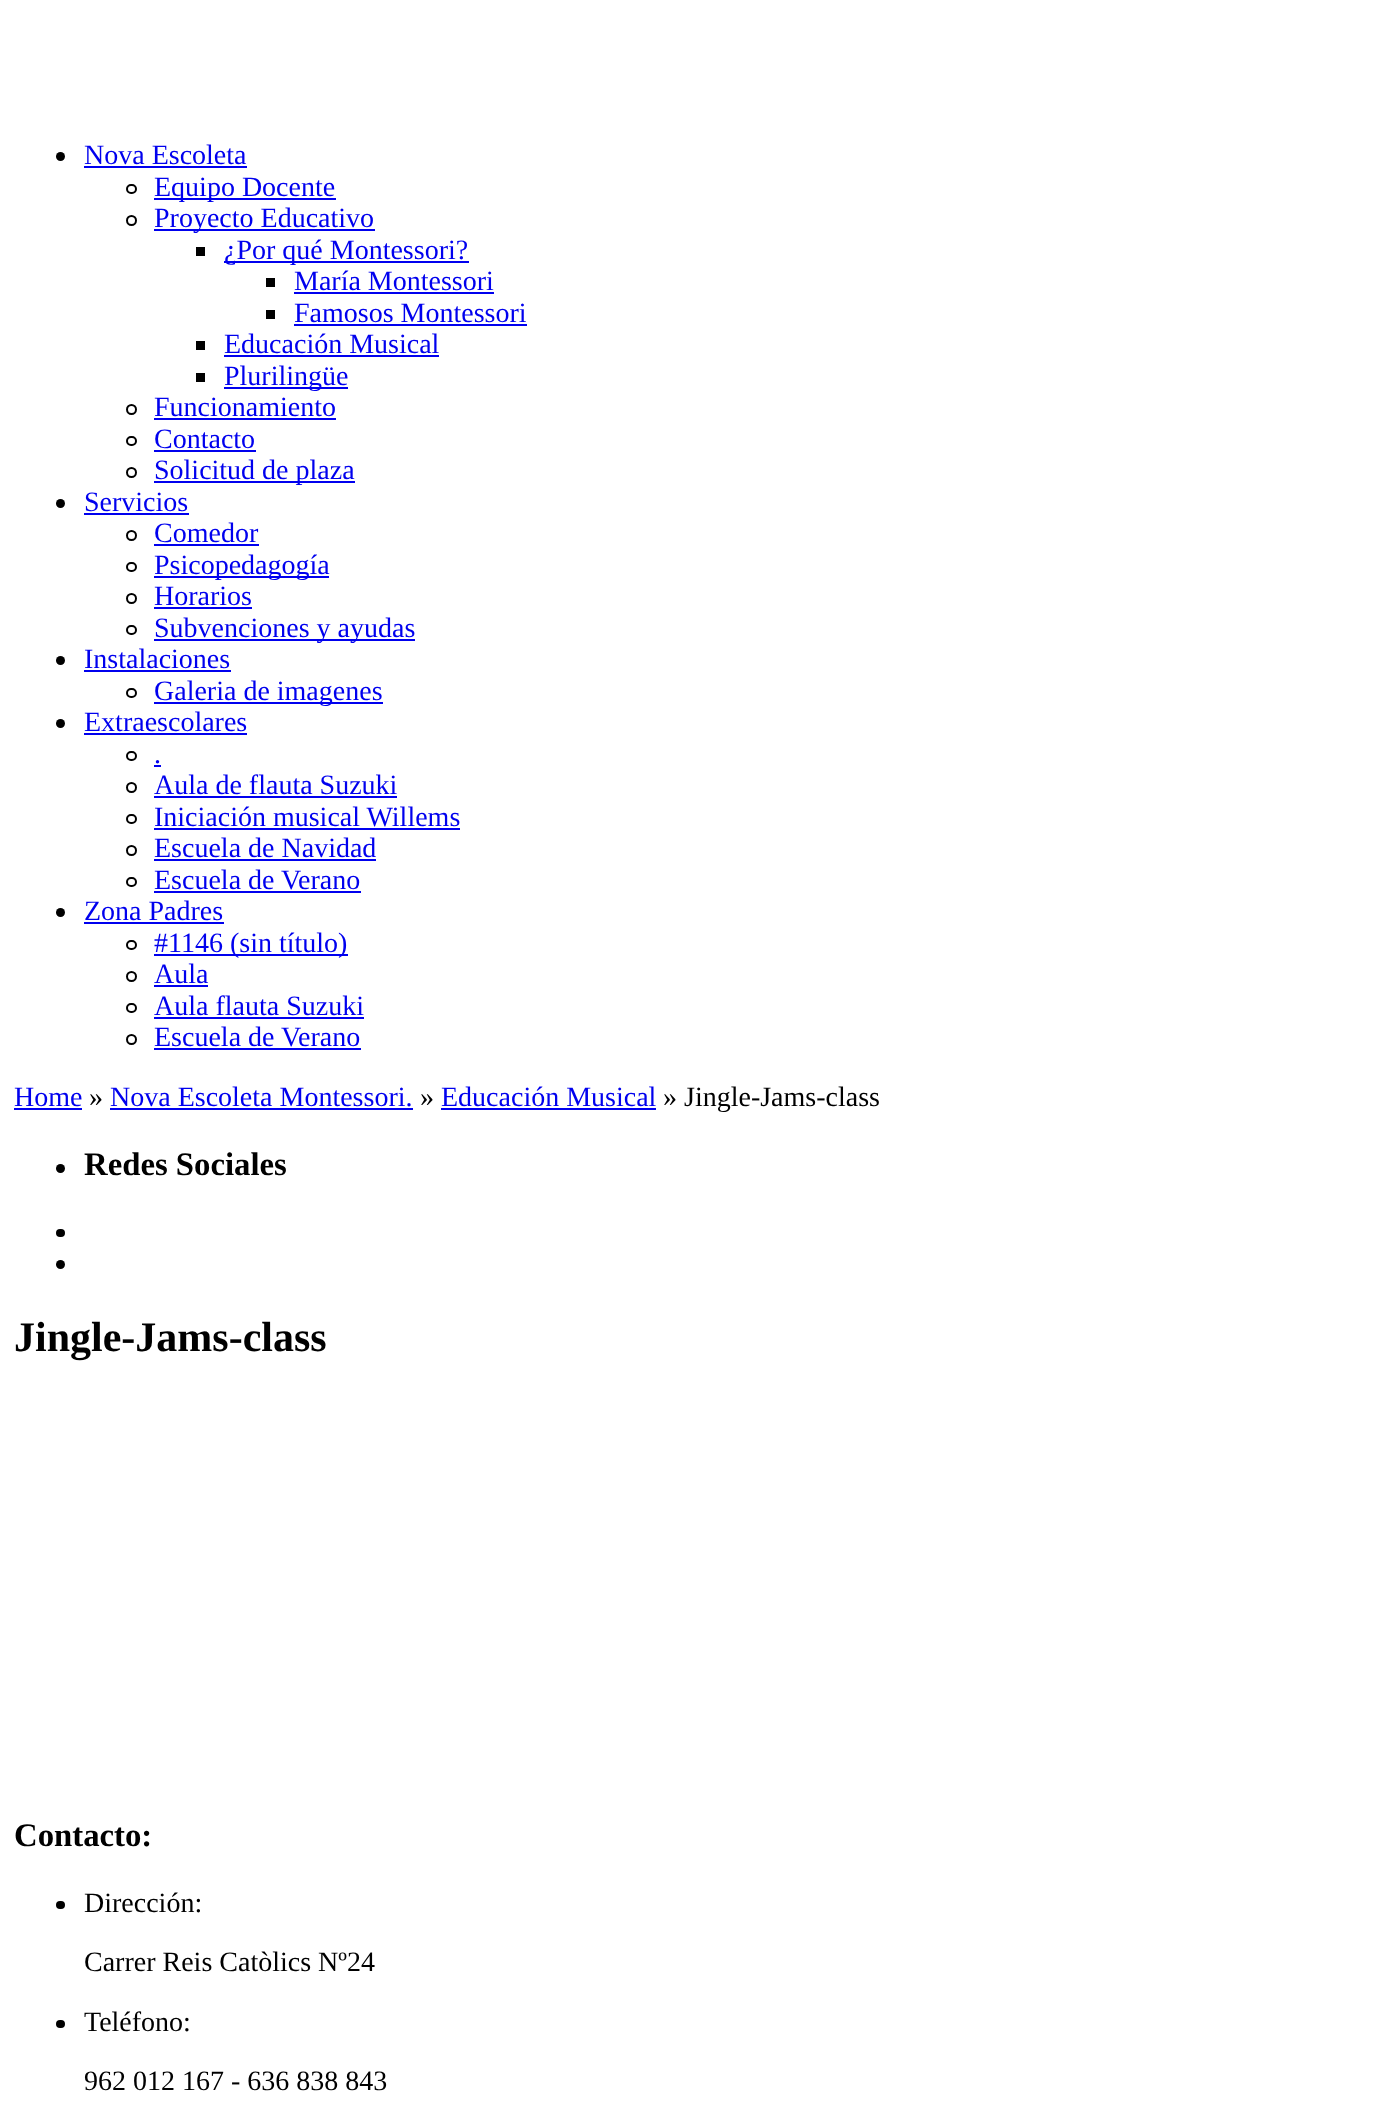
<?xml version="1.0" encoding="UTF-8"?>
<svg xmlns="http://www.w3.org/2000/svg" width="1382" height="2120">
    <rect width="100%" height="100%" fill="#FFFFFF"/>
    <circle cx="60.5" cy="156.5" r="4.5" fill="#000000"/>
    <text x="84" y="164" font-family="Liberation Serif" font-size="28" fill="#0000EE">Nova Escoleta</text>
    <rect x="84" y="166" width="163" height="2" fill="#0000EE"/>
    <rect x="127" y="185" width="9" height="8" rx="4" fill="none" stroke="#000000" stroke-width="2"/>
    <rect x="154" y="198" width="182" height="2" fill="#0000EE"/>
    <text x="154" y="196" font-family="Liberation Serif" font-size="28" fill="#0000EE">Equipo Docente</text>
    <circle cx="131.5" cy="220.5" r="4.5" fill="none" stroke="#000000" stroke-width="2"/>
    <rect x="154" y="229" width="221" height="2" fill="#0000EE"/>
    <text x="154" y="227" font-family="Liberation Serif" font-size="28" fill="#0000EE">Proyecto Educativo</text>
    <rect x="196" y="247" width="9" height="9" fill="#000000"/>
    <rect x="224" y="261" width="245" height="2" fill="#0000EE"/>
    <text x="224" y="259" font-family="Liberation Serif" font-size="28" fill="#0000EE">¿Por qué Montessori?</text>
    <rect x="266" y="278" width="9" height="9" fill="#000000"/>
    <text x="294" y="290" font-family="Liberation Serif" font-size="28" fill="#0000EE">María Montessori</text>
    <rect x="294" y="292" width="200" height="2" fill="#0000EE"/>
    <rect x="266" y="310" width="9" height="9" fill="#000000"/>
    <text x="294" y="322" font-family="Liberation Serif" font-size="28" fill="#0000EE">Famosos Montessori</text>
    <rect x="294" y="324" width="233" height="2" fill="#0000EE"/>
    <rect x="196" y="341" width="9" height="9" fill="#000000"/>
    <text x="224" y="353" font-family="Liberation Serif" font-size="28" fill="#0000EE">Educación Musical</text>
    <rect x="224" y="355" width="215" height="2" fill="#0000EE"/>
    <rect x="196" y="373" width="9" height="9" fill="#000000"/>
    <rect x="224" y="387" width="124" height="2" fill="#0000EE"/>
    <text x="224" y="385" font-family="Liberation Serif" font-size="28" fill="#0000EE">Plurilingüe</text>
    <circle cx="131.5" cy="409.5" r="4.5" fill="none" stroke="#000000" stroke-width="2"/>
    <text x="154" y="416" font-family="Liberation Serif" font-size="28" fill="#0000EE">Funcionamiento</text>
    <rect x="154" y="418" width="182" height="2" fill="#0000EE"/>
    <rect x="127" y="437" width="9" height="8" rx="4" fill="none" stroke="#000000" stroke-width="2"/>
    <text x="154" y="448" font-family="Liberation Serif" font-size="28" fill="#0000EE">Contacto</text>
    <rect x="154" y="450" width="102" height="2" fill="#0000EE"/>
    <circle cx="131.5" cy="472.5" r="4.5" fill="none" stroke="#000000" stroke-width="2"/>
    <rect x="154" y="481" width="201" height="2" fill="#0000EE"/>
    <text x="154" y="479" font-family="Liberation Serif" font-size="28" fill="#0000EE">Solicitud de plaza</text>
    <circle cx="60.5" cy="503.5" r="4.5" fill="#000000"/>
    <text x="84" y="511" font-family="Liberation Serif" font-size="28" fill="#0000EE">Servicios</text>
    <rect x="84" y="513" width="105" height="2" fill="#0000EE"/>
    <circle cx="131.5" cy="535.5" r="4.5" fill="none" stroke="#000000" stroke-width="2"/>
    <text x="154" y="542" font-family="Liberation Serif" font-size="28" fill="#0000EE">Comedor</text>
    <rect x="154" y="544" width="105" height="2" fill="#0000EE"/>
    <rect x="127" y="563" width="9" height="8" rx="4" fill="none" stroke="#000000" stroke-width="2"/>
    <rect x="154" y="576" width="175" height="2" fill="#0000EE"/>
    <text x="154" y="574" font-family="Liberation Serif" font-size="28" fill="#0000EE">Psicopedagogía</text>
    <circle cx="131.5" cy="598.5" r="4.5" fill="none" stroke="#000000" stroke-width="2"/>
    <text x="154" y="605" font-family="Liberation Serif" font-size="28" fill="#0000EE">Horarios</text>
    <rect x="154" y="607" width="98" height="2" fill="#0000EE"/>
    <rect x="127" y="626" width="9" height="8" rx="4" fill="none" stroke="#000000" stroke-width="2"/>
    <rect x="154" y="639" width="261" height="2" fill="#0000EE"/>
    <text x="154" y="637" font-family="Liberation Serif" font-size="28" fill="#0000EE">Subvenciones y ayudas</text>
    <circle cx="60.5" cy="660.5" r="4.5" fill="#000000"/>
    <text x="84" y="668" font-family="Liberation Serif" font-size="28" fill="#0000EE">Instalaciones</text>
    <rect x="84" y="670" width="147" height="2" fill="#0000EE"/>
    <rect x="127" y="689" width="9" height="8" rx="4" fill="none" stroke="#000000" stroke-width="2"/>
    <rect x="154" y="702" width="229" height="2" fill="#0000EE"/>
    <text x="154" y="700" font-family="Liberation Serif" font-size="28" fill="#0000EE">Galeria de imagenes</text>
    <circle cx="60.5" cy="723.5" r="4.5" fill="#000000"/>
    <text x="84" y="731" font-family="Liberation Serif" font-size="28" fill="#0000EE">Extraescolares</text>
    <rect x="84" y="733" width="163" height="2" fill="#0000EE"/>
    <rect x="127" y="752" width="9" height="8" rx="4" fill="none" stroke="#000000" stroke-width="2"/>
    <text x="154" y="763" font-family="Liberation Serif" font-size="28" fill="#0000EE">.</text>
    <rect x="154" y="765" width="7" height="2" fill="#0000EE"/>
    <circle cx="131.5" cy="787.5" r="4.5" fill="none" stroke="#000000" stroke-width="2"/>
    <text x="154" y="794" font-family="Liberation Serif" font-size="28" fill="#0000EE">Aula de flauta Suzuki</text>
    <rect x="154" y="796" width="243" height="2" fill="#0000EE"/>
    <rect x="127" y="815" width="9" height="8" rx="4" fill="none" stroke="#000000" stroke-width="2"/>
    <text x="154" y="826" font-family="Liberation Serif" font-size="28" fill="#0000EE">Iniciación musical Willems</text>
    <rect x="154" y="828" width="306" height="2" fill="#0000EE"/>
    <circle cx="131.5" cy="850.5" r="4.5" fill="none" stroke="#000000" stroke-width="2"/>
    <text x="154" y="857" font-family="Liberation Serif" font-size="28" fill="#0000EE">Escuela de Navidad</text>
    <rect x="154" y="859" width="222" height="2" fill="#0000EE"/>
    <rect x="127" y="878" width="9" height="8" rx="4" fill="none" stroke="#000000" stroke-width="2"/>
    <text x="154" y="889" font-family="Liberation Serif" font-size="28" fill="#0000EE">Escuela de Verano</text>
    <rect x="154" y="891" width="207" height="2" fill="#0000EE"/>
    <circle cx="60.5" cy="912.5" r="4.5" fill="#000000"/>
    <text x="84" y="920" font-family="Liberation Serif" font-size="28" fill="#0000EE">Zona Padres</text>
    <rect x="84" y="922" width="140" height="2" fill="#0000EE"/>
    <rect x="127" y="941" width="9" height="8" rx="4" fill="none" stroke="#000000" stroke-width="2"/>
    <rect x="154" y="954" width="194" height="2" fill="#0000EE"/>
    <text x="154" y="952" font-family="Liberation Serif" font-size="28" fill="#0000EE">#1146 (sin título)</text>
    <circle cx="131.5" cy="976.5" r="4.5" fill="none" stroke="#000000" stroke-width="2"/>
    <text x="154" y="983" font-family="Liberation Serif" font-size="28" fill="#0000EE">Aula</text>
    <rect x="154" y="985" width="54" height="2" fill="#0000EE"/>
    <rect x="127" y="1004" width="9" height="8" rx="4" fill="none" stroke="#000000" stroke-width="2"/>
    <text x="154" y="1015" font-family="Liberation Serif" font-size="28" fill="#0000EE">Aula flauta Suzuki</text>
    <rect x="154" y="1017" width="210" height="2" fill="#0000EE"/>
    <circle cx="131.5" cy="1039.5" r="4.5" fill="none" stroke="#000000" stroke-width="2"/>
    <text x="154" y="1046" font-family="Liberation Serif" font-size="28" fill="#0000EE">Escuela de Verano</text>
    <rect x="154" y="1048" width="207" height="2" fill="#0000EE"/>
    <text x="14" y="1106" font-family="Liberation Serif" font-size="28" fill="#0000EE">Home</text>
    <rect x="14" y="1108" width="68" height="2" fill="#0000EE"/>
    <text x="89" y="1106" font-family="Liberation Serif" font-size="28" fill="#000000">»</text>
    <text x="110" y="1106" font-family="Liberation Serif" font-size="28" fill="#0000EE">Nova Escoleta Montessori.</text>
    <rect x="110" y="1108" width="303" height="2" fill="#0000EE"/>
    <text x="420" y="1106" font-family="Liberation Serif" font-size="28" fill="#000000">»</text>
    <text x="441" y="1106" font-family="Liberation Serif" font-size="28" fill="#0000EE">Educación Musical</text>
    <rect x="441" y="1108" width="215" height="2" fill="#0000EE"/>
    <text x="663" y="1106" font-family="Liberation Serif" font-size="28" fill="#000000">» Jingle-Jams-class</text>
    <circle cx="60.5" cy="1168.5" r="4.5" fill="#000000"/>
    <text x="84" y="1175" font-family="Liberation Serif" font-size="32.75" font-weight="700" fill="#000000">Redes Sociales</text>
    <rect x="56" y="1229" width="9" height="8" rx="4" fill="#000000"/>
    <circle cx="60.5" cy="1264.5" r="4.5" fill="#000000"/>
    <text x="14" y="1351" font-family="Liberation Serif" font-size="42" font-weight="700" fill="#000000">Jingle-Jams-class</text>
    <text x="14" y="1846" font-family="Liberation Serif" font-size="32.75" font-weight="700" fill="#000000">Contacto:</text>
    <rect x="56" y="1901" width="9" height="8" rx="4" fill="#000000"/>
    <text x="84" y="1912" font-family="Liberation Serif" font-size="28" fill="#000000">Dirección:</text>
    <text x="84" y="1971" font-family="Liberation Serif" font-size="28" fill="#000000">Carrer Reis Catòlics Nº24</text>
    <rect x="56" y="2020" width="9" height="8" rx="4" fill="#000000"/>
    <text x="84" y="2031" font-family="Liberation Serif" font-size="28" fill="#000000">Teléfono:</text>
    <text x="84" y="2090" font-family="Liberation Serif" font-size="28" fill="#000000">962 012 167 - 636 838 843</text>
</svg>
